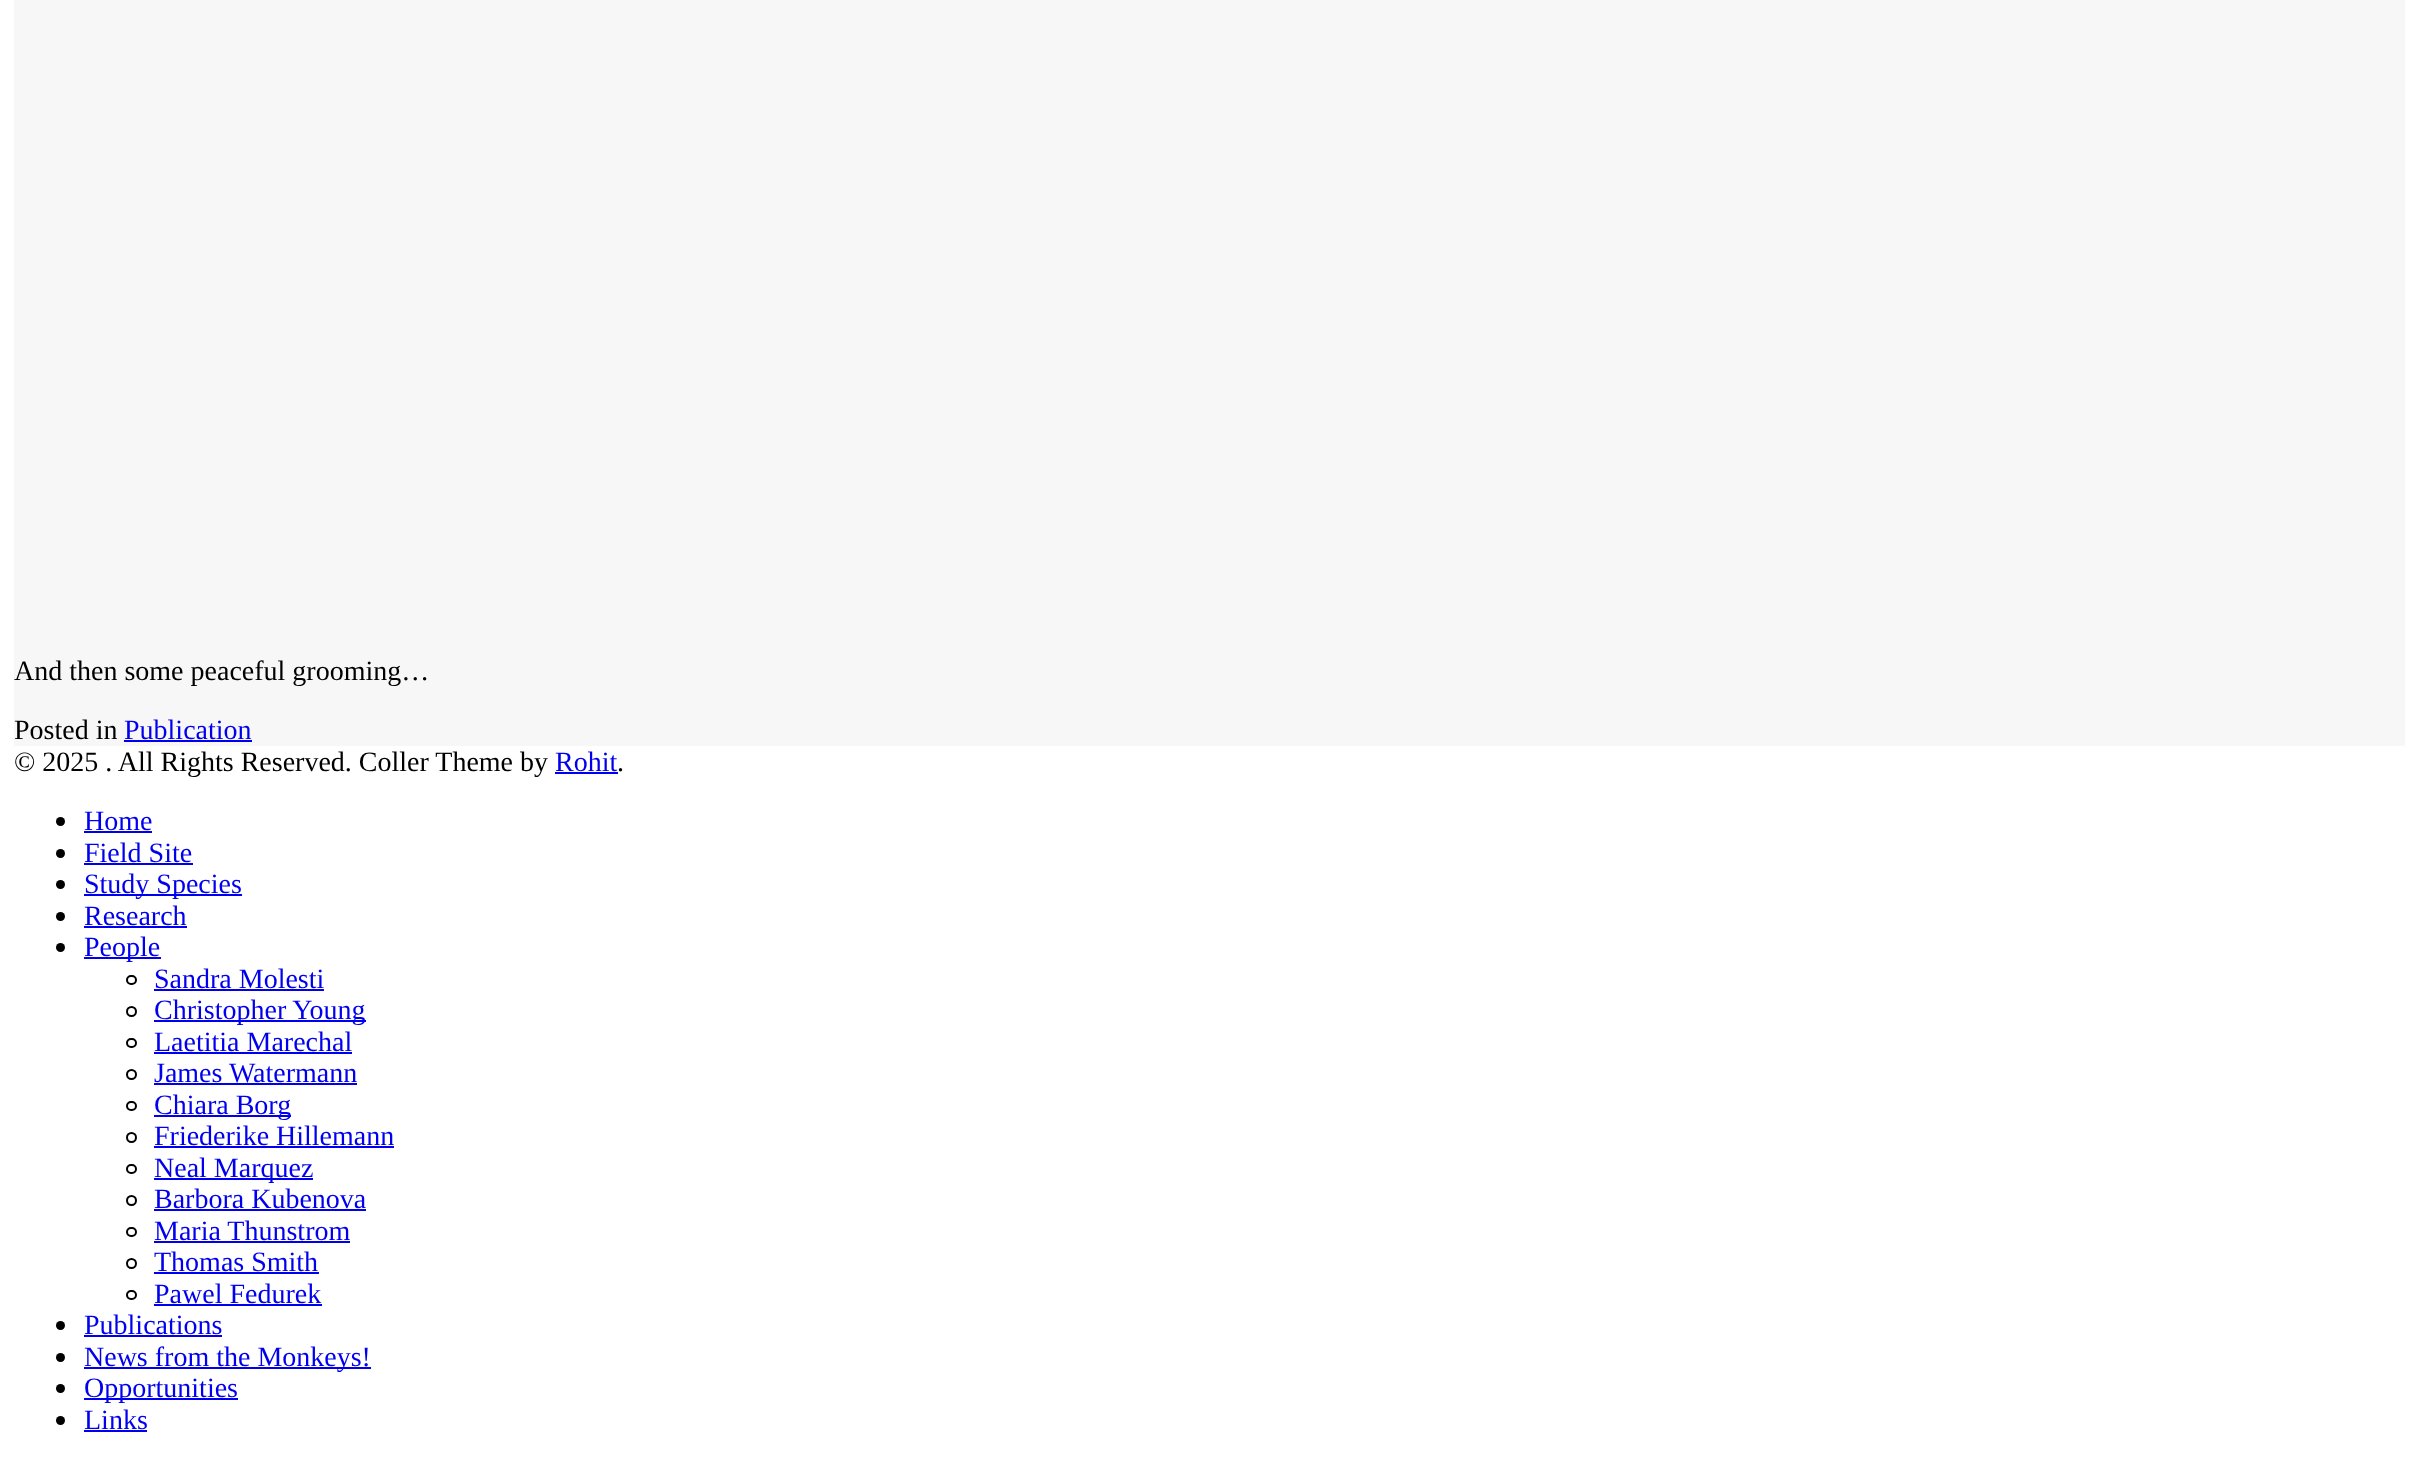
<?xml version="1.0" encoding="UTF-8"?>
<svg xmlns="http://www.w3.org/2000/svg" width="2417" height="1462">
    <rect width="100%" height="100%" fill="#FFFFFF"/>
    <rect x="14" y="0" width="2391" height="746" fill="#F7F7F7"/>
    <text x="14" y="680" font-family="Liberation Serif" font-size="28" fill="#000000">And then some peaceful grooming…</text>
    <text x="14" y="739" font-family="Liberation Serif" font-size="28" fill="#000000">Posted in</text>
    <text x="124" y="739" font-family="Liberation Serif" font-size="28" fill="#0000EE">Publication</text>
    <rect x="124" y="740" width="128" height="2" fill="#0000EE"/>
    <text x="14" y="771" font-family="Liberation Serif" font-size="28" fill="#000000">© 2025 . All Rights Reserved. Coller Theme by</text>
    <text x="555" y="771" font-family="Liberation Serif" font-size="28" fill="#0000EE">Rohit</text>
    <rect x="555" y="772" width="63" height="2" fill="#0000EE"/>
    <text x="617" y="771" font-family="Liberation Serif" font-size="28" fill="#000000">.</text>
    <circle cx="60.5" cy="821.5" r="4.5" fill="#000000"/>
    <text x="84" y="830" font-family="Liberation Serif" font-size="28" fill="#0000EE">Home</text>
    <rect x="84" y="831" width="68" height="2" fill="#0000EE"/>
    <circle cx="60.5" cy="853.5" r="4.5" fill="#000000"/>
    <text x="84" y="862" font-family="Liberation Serif" font-size="28" fill="#0000EE">Field Site</text>
    <rect x="84" y="863" width="109" height="2" fill="#0000EE"/>
    <circle cx="60.5" cy="884.5" r="4.5" fill="#000000"/>
    <rect x="84" y="894" width="158" height="2" fill="#0000EE"/>
    <text x="84" y="893" font-family="Liberation Serif" font-size="28" fill="#0000EE">Study Species</text>
    <circle cx="60.5" cy="916.5" r="4.5" fill="#000000"/>
    <text x="84" y="925" font-family="Liberation Serif" font-size="28" fill="#0000EE">Research</text>
    <rect x="84" y="926" width="103" height="2" fill="#0000EE"/>
    <circle cx="60.5" cy="947.5" r="4.5" fill="#000000"/>
    <rect x="84" y="957" width="77" height="2" fill="#0000EE"/>
    <text x="84" y="956" font-family="Liberation Serif" font-size="28" fill="#0000EE">People</text>
    <rect x="127" y="976" width="9" height="8" rx="4" fill="none" stroke="#000000" stroke-width="2"/>
    <text x="154" y="988" font-family="Liberation Serif" font-size="28" fill="#0000EE">Sandra Molesti</text>
    <rect x="154" y="989" width="170" height="2" fill="#0000EE"/>
    <circle cx="131.5" cy="1011.5" r="4.5" fill="none" stroke="#000000" stroke-width="2"/>
    <rect x="154" y="1020" width="212" height="2" fill="#0000EE"/>
    <text x="154" y="1019" font-family="Liberation Serif" font-size="28" fill="#0000EE">Christopher Young</text>
    <rect x="127" y="1039" width="9" height="8" rx="4" fill="none" stroke="#000000" stroke-width="2"/>
    <text x="154" y="1051" font-family="Liberation Serif" font-size="28" fill="#0000EE">Laetitia Marechal</text>
    <rect x="154" y="1052" width="198" height="2" fill="#0000EE"/>
    <circle cx="131.5" cy="1074.5" r="4.5" fill="none" stroke="#000000" stroke-width="2"/>
    <text x="154" y="1082" font-family="Liberation Serif" font-size="28" fill="#0000EE">James Watermann</text>
    <rect x="154" y="1083" width="203" height="2" fill="#0000EE"/>
    <rect x="127" y="1102" width="9" height="8" rx="4" fill="none" stroke="#000000" stroke-width="2"/>
    <rect x="154" y="1115" width="137" height="2" fill="#0000EE"/>
    <text x="154" y="1114" font-family="Liberation Serif" font-size="28" fill="#0000EE">Chiara Borg</text>
    <circle cx="131.5" cy="1137.5" r="4.5" fill="none" stroke="#000000" stroke-width="2"/>
    <text x="154" y="1145" font-family="Liberation Serif" font-size="28" fill="#0000EE">Friederike Hillemann</text>
    <rect x="154" y="1146" width="240" height="2" fill="#0000EE"/>
    <rect x="127" y="1165" width="9" height="8" rx="4" fill="none" stroke="#000000" stroke-width="2"/>
    <rect x="154" y="1178" width="159" height="2" fill="#0000EE"/>
    <text x="154" y="1177" font-family="Liberation Serif" font-size="28" fill="#0000EE">Neal Marquez</text>
    <circle cx="131.5" cy="1200.5" r="4.5" fill="none" stroke="#000000" stroke-width="2"/>
    <text x="154" y="1208" font-family="Liberation Serif" font-size="28" fill="#0000EE">Barbora Kubenova</text>
    <rect x="154" y="1209" width="212" height="2" fill="#0000EE"/>
    <rect x="127" y="1228" width="9" height="8" rx="4" fill="none" stroke="#000000" stroke-width="2"/>
    <text x="154" y="1240" font-family="Liberation Serif" font-size="28" fill="#0000EE">Maria Thunstrom</text>
    <rect x="154" y="1241" width="196" height="2" fill="#0000EE"/>
    <circle cx="131.5" cy="1263.5" r="4.5" fill="none" stroke="#000000" stroke-width="2"/>
    <text x="154" y="1271" font-family="Liberation Serif" font-size="28" fill="#0000EE">Thomas Smith</text>
    <rect x="154" y="1272" width="165" height="2" fill="#0000EE"/>
    <rect x="127" y="1291" width="9" height="8" rx="4" fill="none" stroke="#000000" stroke-width="2"/>
    <text x="154" y="1303" font-family="Liberation Serif" font-size="28" fill="#0000EE">Pawel Fedurek</text>
    <rect x="154" y="1304" width="168" height="2" fill="#0000EE"/>
    <circle cx="60.5" cy="1325.5" r="4.5" fill="#000000"/>
    <text x="84" y="1334" font-family="Liberation Serif" font-size="28" fill="#0000EE">Publications</text>
    <rect x="84" y="1335" width="138" height="2" fill="#0000EE"/>
    <circle cx="60.5" cy="1357.5" r="4.5" fill="#000000"/>
    <rect x="84" y="1367" width="287" height="2" fill="#0000EE"/>
    <text x="84" y="1366" font-family="Liberation Serif" font-size="28" fill="#0000EE">News from the Monkeys!</text>
    <circle cx="60.5" cy="1388.5" r="4.5" fill="#000000"/>
    <rect x="84" y="1398" width="154" height="2" fill="#0000EE"/>
    <text x="84" y="1397" font-family="Liberation Serif" font-size="28" fill="#0000EE">Opportunities</text>
    <circle cx="60.5" cy="1420.5" r="4.5" fill="#000000"/>
    <text x="84" y="1429" font-family="Liberation Serif" font-size="28" fill="#0000EE">Links</text>
    <rect x="84" y="1430" width="63" height="2" fill="#0000EE"/>
</svg>
